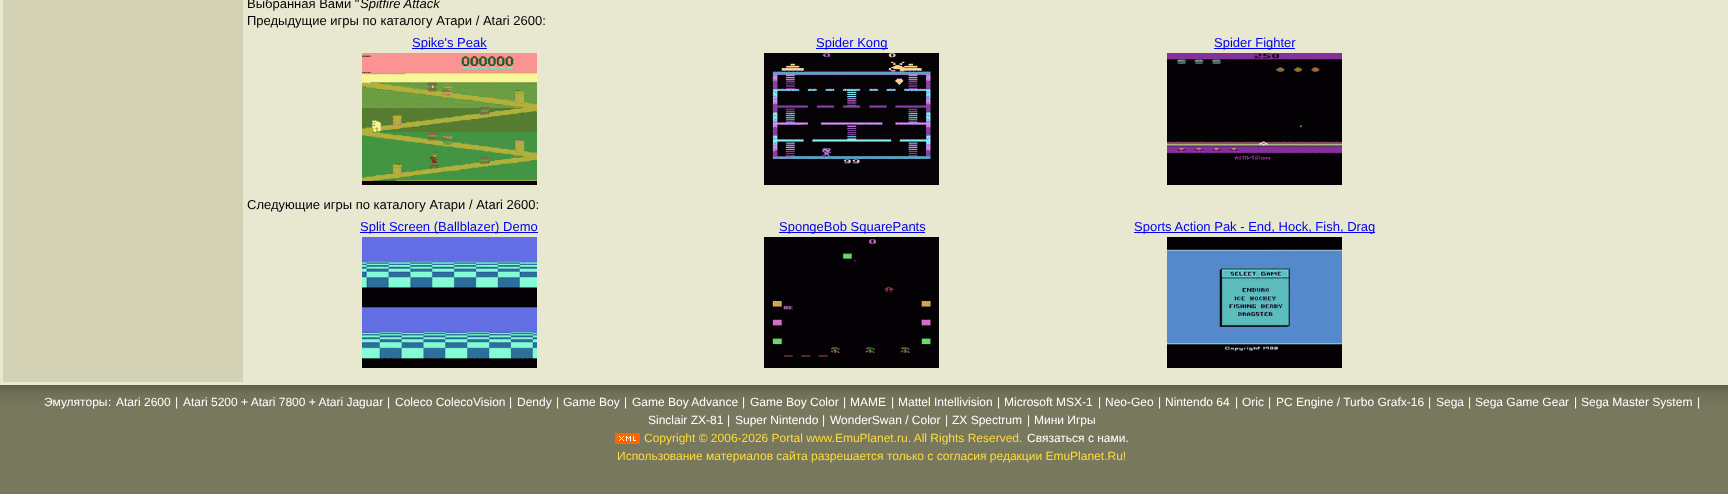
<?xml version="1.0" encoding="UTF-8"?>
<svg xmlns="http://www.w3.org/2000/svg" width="1728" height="499">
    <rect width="100%" height="100%" fill="#FFFFFF"/>
    <rect x="0" y="0" width="1728" height="385" fill="#E8E8D0"/>
    <rect x="3" y="0" width="240" height="382" fill="#D3D2B4"/>
    <text x="247" y="8" font-family="Liberation Sans" font-size="13" fill="#000000">Выбранная Вами "</text>
    <text x="360" y="8" font-family="Liberation Sans" font-size="13" font-style="italic" fill="#000000">Spitfire Attack</text>
    <text x="247" y="25" font-family="Liberation Sans" font-size="13" fill="#000000">Предыдущие игры по каталогу Атари / Atari 2600:</text>
    <rect x="412" y="48" width="75" height="1" fill="#0000EE"/>
    <text x="412" y="47" font-family="Liberation Sans" font-size="13" fill="#0000EE">Spike's Peak</text>
    <image x="362" y="53" width="175" height="132" href="img_01.png"/>
    <rect x="816" y="48" width="72" height="1" fill="#0000EE"/>
    <text x="816" y="47" font-family="Liberation Sans" font-size="13" fill="#0000EE">Spider Kong</text>
    <image x="764" y="53" width="175" height="132" href="img_02.png"/>
    <rect x="1214" y="48" width="81" height="1" fill="#0000EE"/>
    <text x="1214" y="47" font-family="Liberation Sans" font-size="13" fill="#0000EE">Spider Fighter</text>
    <image x="1167" y="53" width="175" height="132" href="img_03.png"/>
    <text x="247" y="209" font-family="Liberation Sans" font-size="13" fill="#000000">Следующие игры по каталогу Атари / Atari 2600:</text>
    <rect x="360" y="232" width="178" height="1" fill="#0000EE"/>
    <text x="360" y="231" font-family="Liberation Sans" font-size="13" fill="#0000EE">Split Screen (Ballblazer) Demo</text>
    <image x="362" y="237" width="175" height="131" href="img_04.png"/>
    <rect x="779" y="232" width="146" height="1" fill="#0000EE"/>
    <text x="779" y="231" font-family="Liberation Sans" font-size="13" fill="#0000EE">SpongeBob SquarePants</text>
    <image x="764" y="237" width="175" height="131" href="img_05.png"/>
    <rect x="1134" y="232" width="241" height="1" fill="#0000EE"/>
    <text x="1134" y="231" font-family="Liberation Sans" font-size="13" fill="#0000EE">Sports Action Pak - End, Hock, Fish, Drag</text>
    <image x="1167" y="237" width="175" height="131" href="img_06.png"/>
    <image x="0" y="385" width="1728" height="109" href="img_07.png"/>
    <text x="44" y="406" font-family="Liberation Sans" font-size="12" fill="#FFFFFF">Эмуляторы</text>
    <text x="108" y="406" font-family="Liberation Sans" font-size="12" fill="#FFFFFF">:</text>
    <text x="116" y="406" font-family="Liberation Sans" font-size="12" fill="#FFFFFF">Atari 2600</text>
    <text x="175" y="406" font-family="Liberation Sans" font-size="12" fill="#FFFFFF">|</text>
    <text x="183" y="406" font-family="Liberation Sans" font-size="12" fill="#FFFFFF">Atari 5200 + Atari 7800 + Atari Jaguar</text>
    <text x="387" y="406" font-family="Liberation Sans" font-size="12" fill="#FFFFFF">|</text>
    <text x="395" y="406" font-family="Liberation Sans" font-size="12" fill="#FFFFFF">Coleco ColecoVision</text>
    <text x="509" y="406" font-family="Liberation Sans" font-size="12" fill="#FFFFFF">|</text>
    <text x="517" y="406" font-family="Liberation Sans" font-size="12" fill="#FFFFFF">Dendy</text>
    <text x="556" y="406" font-family="Liberation Sans" font-size="12" fill="#FFFFFF">|</text>
    <text x="563" y="406" font-family="Liberation Sans" font-size="12" fill="#FFFFFF">Game Boy</text>
    <text x="624" y="406" font-family="Liberation Sans" font-size="12" fill="#FFFFFF">|</text>
    <text x="632" y="406" font-family="Liberation Sans" font-size="12" fill="#FFFFFF">Game Boy Advance</text>
    <text x="742" y="406" font-family="Liberation Sans" font-size="12" fill="#FFFFFF">|</text>
    <text x="750" y="406" font-family="Liberation Sans" font-size="12" fill="#FFFFFF">Game Boy Color</text>
    <text x="843" y="406" font-family="Liberation Sans" font-size="12" fill="#FFFFFF">|</text>
    <text x="850" y="406" font-family="Liberation Sans" font-size="12" fill="#FFFFFF">MAME</text>
    <text x="891" y="406" font-family="Liberation Sans" font-size="12" fill="#FFFFFF">|</text>
    <text x="898" y="406" font-family="Liberation Sans" font-size="12" fill="#FFFFFF">Mattel Intellivision</text>
    <text x="997" y="406" font-family="Liberation Sans" font-size="12" fill="#FFFFFF">|</text>
    <text x="1004" y="406" font-family="Liberation Sans" font-size="12" fill="#FFFFFF">Microsoft MSX-1</text>
    <text x="1098" y="406" font-family="Liberation Sans" font-size="12" fill="#FFFFFF">|</text>
    <text x="1105" y="406" font-family="Liberation Sans" font-size="12" fill="#FFFFFF">Neo-Geo</text>
    <text x="1158" y="406" font-family="Liberation Sans" font-size="12" fill="#FFFFFF">|</text>
    <text x="1165" y="406" font-family="Liberation Sans" font-size="12" fill="#FFFFFF">Nintendo 64</text>
    <text x="1235" y="406" font-family="Liberation Sans" font-size="12" fill="#FFFFFF">|</text>
    <text x="1242" y="406" font-family="Liberation Sans" font-size="12" fill="#FFFFFF">Oric</text>
    <text x="1268" y="406" font-family="Liberation Sans" font-size="12" fill="#FFFFFF">|</text>
    <text x="1276" y="406" font-family="Liberation Sans" font-size="12" fill="#FFFFFF">PC Engine / Turbo Grafx-16</text>
    <text x="1428" y="406" font-family="Liberation Sans" font-size="12" fill="#FFFFFF">|</text>
    <text x="1436" y="406" font-family="Liberation Sans" font-size="12" fill="#FFFFFF">Sega</text>
    <text x="1468" y="406" font-family="Liberation Sans" font-size="12" fill="#FFFFFF">|</text>
    <text x="1475" y="406" font-family="Liberation Sans" font-size="12" fill="#FFFFFF">Sega Game Gear</text>
    <text x="1574" y="406" font-family="Liberation Sans" font-size="12" fill="#FFFFFF">|</text>
    <text x="1581" y="406" font-family="Liberation Sans" font-size="12" fill="#FFFFFF">Sega Master System</text>
    <text x="1697" y="406" font-family="Liberation Sans" font-size="12" fill="#FFFFFF">|</text>
    <text x="648" y="424" font-family="Liberation Sans" font-size="12" fill="#FFFFFF">Sinclair ZX-81</text>
    <text x="727" y="424" font-family="Liberation Sans" font-size="12" fill="#FFFFFF">|</text>
    <text x="735" y="424" font-family="Liberation Sans" font-size="12" fill="#FFFFFF">Super Nintendo</text>
    <text x="822" y="424" font-family="Liberation Sans" font-size="12" fill="#FFFFFF">|</text>
    <text x="830" y="424" font-family="Liberation Sans" font-size="12" fill="#FFFFFF">WonderSwan / Color</text>
    <text x="945" y="424" font-family="Liberation Sans" font-size="12" fill="#FFFFFF">|</text>
    <text x="952" y="424" font-family="Liberation Sans" font-size="12" fill="#FFFFFF">ZX Spectrum</text>
    <text x="1027" y="424" font-family="Liberation Sans" font-size="12" fill="#FFFFFF">|</text>
    <text x="1034" y="424" font-family="Liberation Sans" font-size="12" fill="#FFFFFF">Мини Игры</text>
    <image x="615" y="433" width="25" height="11" href="img_08.png"/>
    <text x="644" y="442" font-family="Liberation Sans" font-size="12" fill="#FEDC3B">Copyright © 2006-2026 Portal www.EmuPlanet.ru. All Rights Reserved.</text>
    <text x="1027" y="442" font-family="Liberation Sans" font-size="12" fill="#FFFFFF">Связаться с нами.</text>
    <text x="617" y="460" font-family="Liberation Sans" font-size="12" fill="#FEDC3B">Использование материалов сайта разрешается только с согласия редакции EmuPlanet.Ru!</text>
</svg>
